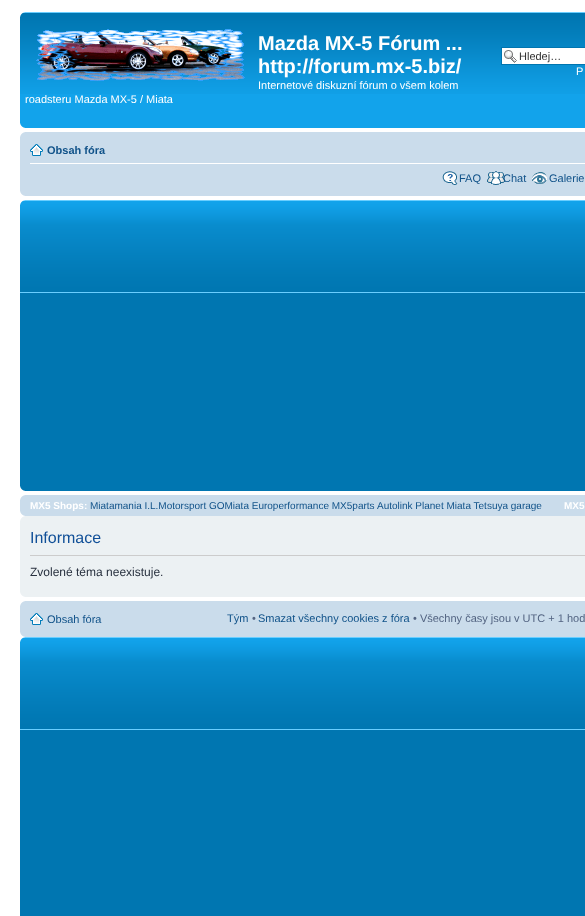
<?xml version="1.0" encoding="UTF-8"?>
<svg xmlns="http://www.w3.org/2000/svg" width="585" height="916">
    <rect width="100%" height="100%" fill="#FFFFFF"/>
    <rect x="20" y="94" width="565" height="34" fill="#12A3EB"/>
    <image x="20" y="12" width="565" height="82" href="img_01.png"/>
    <image x="20" y="12" width="5" height="5" href="img_02.png"/>
    <image x="36" y="29" width="209" height="52" href="img_03.png"/>
    <text font-family="Liberation Sans" font-size="20" font-weight="700" fill="#FFFFFF">
        <tspan x="258" y="50">Mazda MX-5 Fórum ...</tspan>
        <tspan x="258" y="73">http://forum.mx-5.biz/</tspan>
    </text>
    <text x="258" y="89" font-family="Liberation Sans" font-size="11" fill="#FFFFFF">Internetové diskuzní fórum o všem kolem</text>
    <text x="25" y="103" font-family="Liberation Sans" font-size="11" fill="#FFFFFF">roadsteru Mazda MX-5 / Miata</text>
    <rect x="502" y="48" width="83" height="16" fill="#FFFFFF"/>
    <image x="504" y="50" width="13" height="13" href="img_04.png"/>
    <rect x="501.5" y="47.5" width="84" height="17" fill="none" stroke="#0075B0"/>
    <text x="519" y="60" font-family="Liberation Sans" font-size="11" fill="#333333">Hledej…</text>
    <text x="576" y="75" font-family="Liberation Sans" font-size="11" fill="#FFFFFF">P</text>
    <image x="20" y="123" width="5" height="5" href="img_05.png"/>
    <rect x="20" y="132" width="565" height="64" fill="#CADCEB"/>
    <image x="20" y="132" width="5" height="5" href="img_06.png"/>
    <rect x="30" y="163" width="555" height="1" fill="#FFFFFF"/>
    <image x="30" y="144" width="13" height="12" href="img_07.png"/>
    <text x="47" y="154" font-family="Liberation Sans" font-size="11" font-weight="700" fill="#105289">Obsah fóra</text>
    <image x="442" y="171" width="16" height="14" href="img_08.png"/>
    <text x="459" y="182" font-family="Liberation Sans" font-size="11" fill="#105289">FAQ</text>
    <image x="487" y="171" width="18" height="14" href="img_09.png"/>
    <text x="503" y="182" font-family="Liberation Sans" font-size="11" fill="#105289">Chat</text>
    <image x="532" y="172" width="15" height="12" href="img_10.png"/>
    <text x="549" y="182" font-family="Liberation Sans" font-size="11" fill="#105289">Galerie</text>
    <image x="20" y="191" width="5" height="5" href="img_11.png"/>
    <rect x="20" y="293" width="565" height="198" fill="#0076B1"/>
    <image x="20" y="200" width="565" height="93" href="img_12.png"/>
    <image x="20" y="200" width="5" height="5" href="img_13.png"/>
    <image x="20" y="486" width="5" height="5" href="img_14.png"/>
    <rect x="20" y="495" width="565" height="21" fill="#CADCEB"/>
    <image x="20" y="495" width="5" height="5" href="img_06.png"/>
    <text x="30" y="509" font-family="Liberation Sans" font-size="10" font-weight="700" fill="#FFFFFF">MX5 Shops:</text>
    <text x="90" y="509" font-family="Liberation Sans" font-size="10" fill="#105289">Miatamania I.L.Motorsport GOMiata Europerformance MX5parts</text>
    <text x="377" y="509" font-family="Liberation Sans" font-size="10" fill="#105289">Autolink Planet Miata Tetsuya garage</text>
    <text x="564" y="509" font-family="Liberation Sans" font-size="10" font-weight="700" fill="#FFFFFF">MX5</text>
    <image x="20" y="511" width="5" height="5" href="img_11.png"/>
    <rect x="20" y="516" width="565" height="81" fill="#ECF1F3"/>
    <image x="20" y="516" width="5" height="5" href="img_15.png"/>
    <rect x="30" y="555" width="555" height="1" fill="#CCCCCC"/>
    <text x="30" y="543" font-family="Liberation Sans" font-size="16" fill="#115098">Informace</text>
    <text x="30" y="576" font-family="Liberation Sans" font-size="12" fill="#28313F">Zvolené téma neexistuje.</text>
    <image x="20" y="592" width="5" height="5" href="img_16.png"/>
    <rect x="20" y="601" width="565" height="36" fill="#CADCEB"/>
    <image x="20" y="601" width="5" height="5" href="img_06.png"/>
    <image x="30" y="613" width="13" height="12" href="img_07.png"/>
    <text x="47" y="623" font-family="Liberation Sans" font-size="11" fill="#105289">Obsah fóra</text>
    <text x="227" y="622" font-family="Liberation Sans" font-size="11" fill="#105289">Tým</text>
    <text x="252" y="622" font-family="Liberation Sans" font-size="11" fill="#536482">•</text>
    <text x="258" y="622" font-family="Liberation Sans" font-size="11" fill="#105289">Smazat všechny cookies z fóra</text>
    <text x="413" y="622" font-family="Liberation Sans" font-size="11" fill="#536482">• Všechny časy jsou v UTC + 1 hod</text>
    <image x="20" y="632" width="5" height="5" href="img_11.png"/>
    <rect x="20" y="730" width="565" height="186" fill="#0076B1"/>
    <image x="20" y="637" width="565" height="93" href="img_12.png"/>
    <image x="20" y="637" width="5" height="5" href="img_13.png"/>
</svg>
